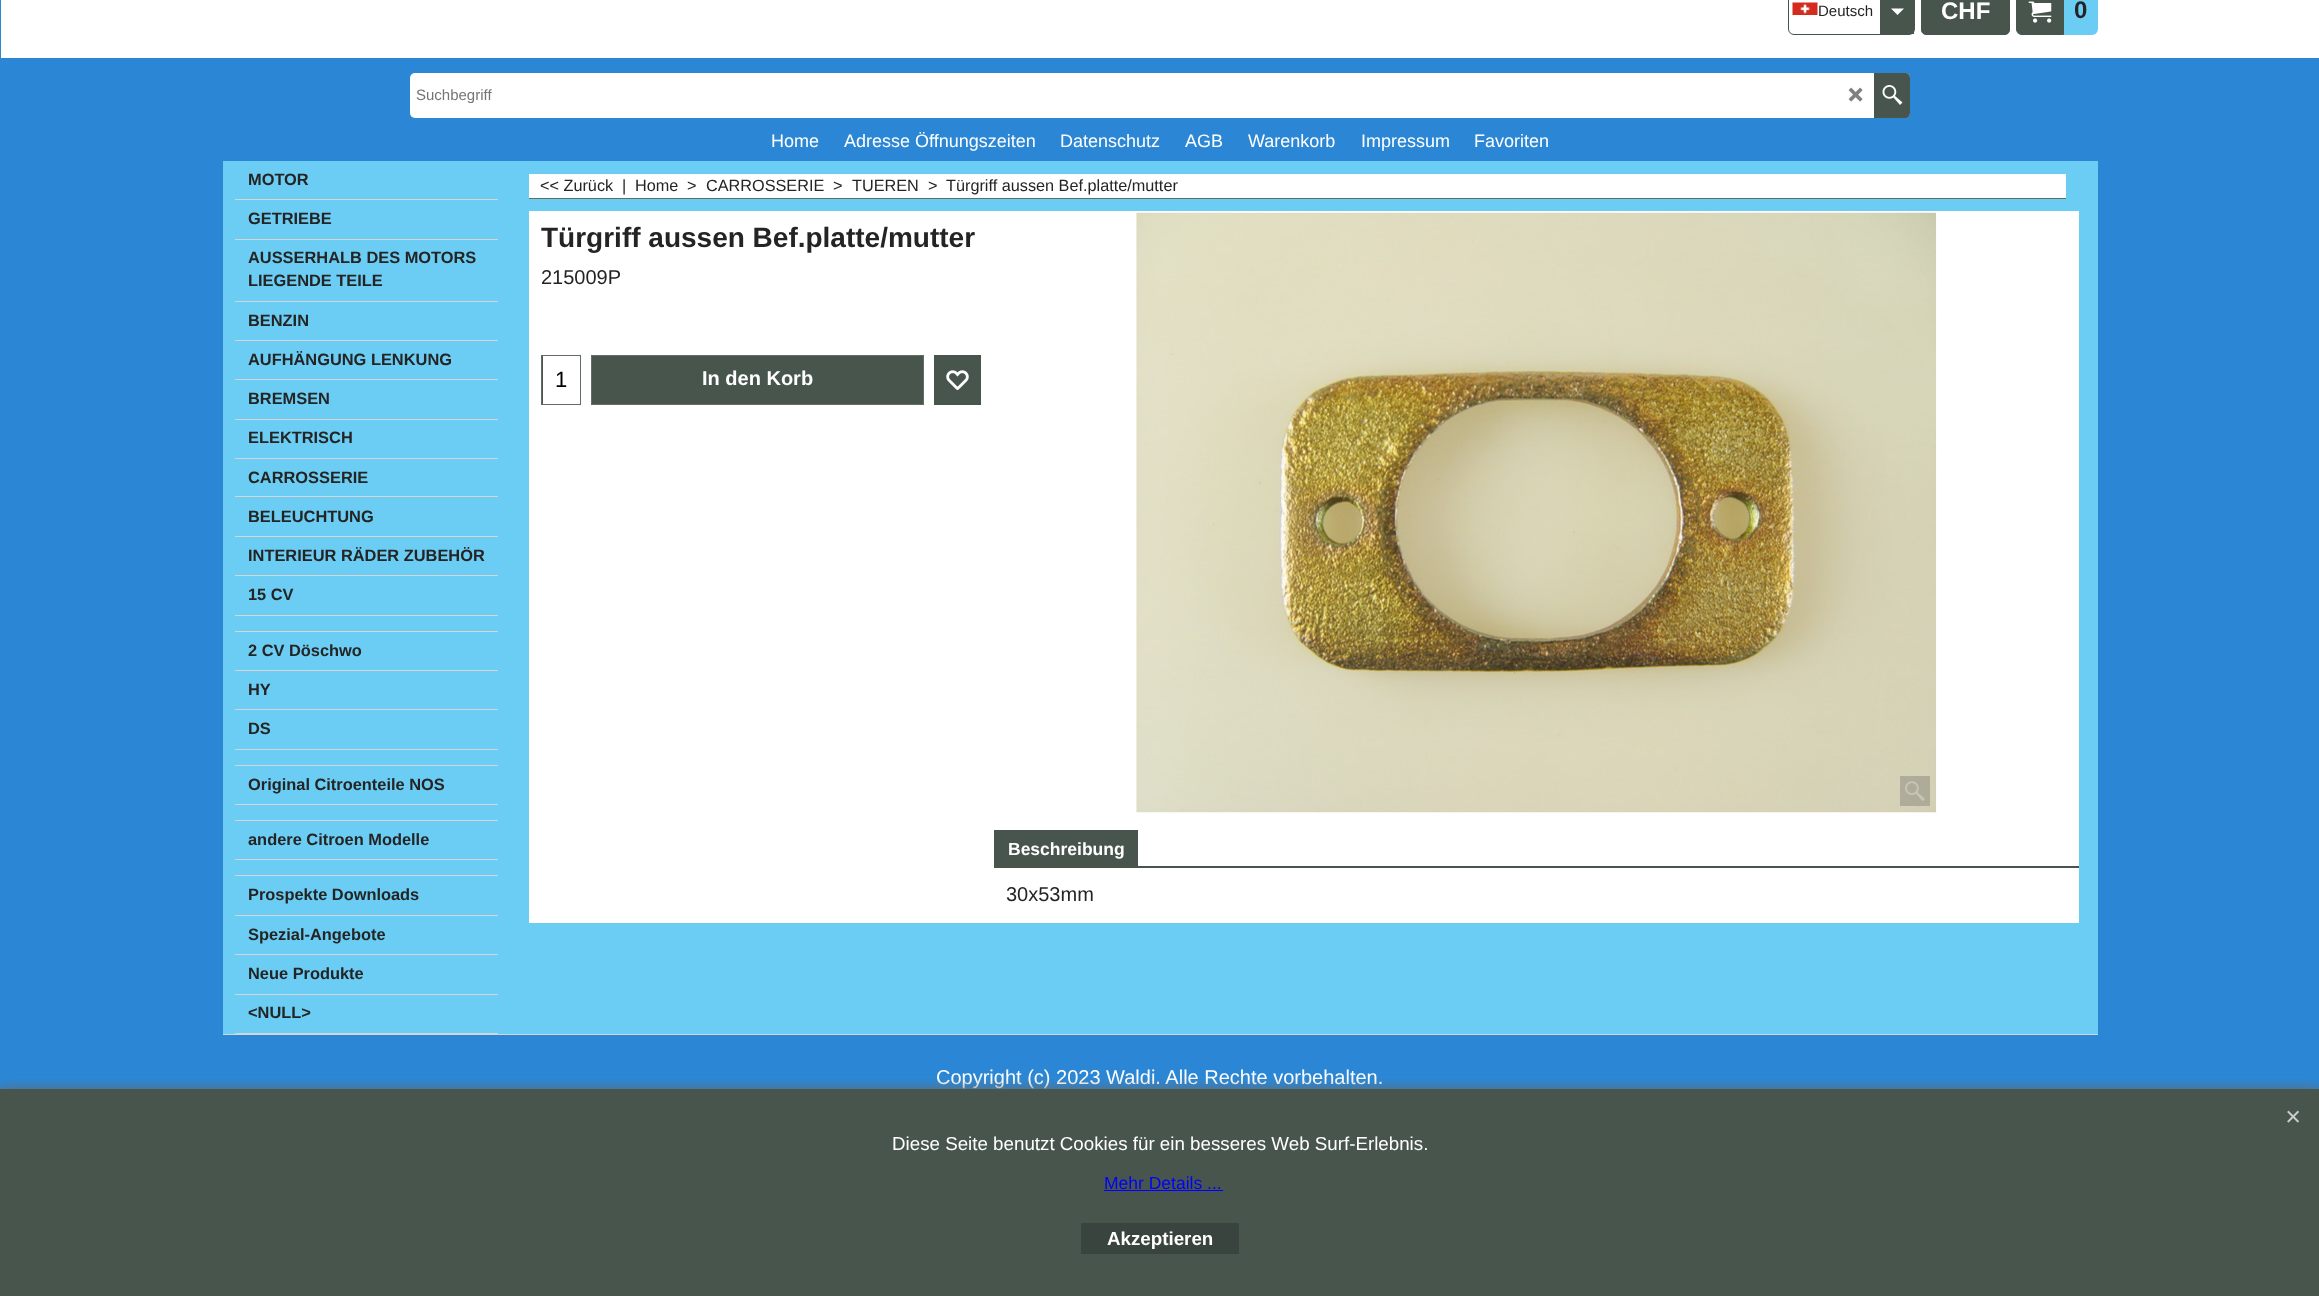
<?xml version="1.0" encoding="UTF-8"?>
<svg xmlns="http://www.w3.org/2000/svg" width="2319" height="1296">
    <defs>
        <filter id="blur1" x="-50%" y="-200%" width="200%" height="500%"><feGaussianBlur stdDeviation="6"/></filter>
    </defs>
    <rect width="100%" height="100%" fill="#2B87D5"/>
    <rect x="1" y="0" width="2318" height="58" fill="#FFFFFF"/>
    <rect x="1788.5" y="-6.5" width="126" height="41" rx="5.5" fill="none" stroke="#48554D"/>
    <image x="1792" y="2" width="26" height="13" href="img_01.png"/>
    <text x="1818" y="16" font-family="Liberation Sans" font-size="15" fill="#242424">Deutsch</text>
    <rect x="1880" y="0" width="34" height="34" fill="#48554D"/>
    <path d="M 1891 8.5 L 1897.5 15 L 1904 8.5 Z" fill="#FFFFFF"/>
    <rect x="1921.5" y="-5.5" width="88" height="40" rx="4.5" fill="#48554D" stroke="#48554D"/>
    <text x="1941" y="19" font-family="Liberation Sans" font-size="24" font-weight="700" fill="#FFFFFF">CHF</text>
    <rect x="2016" y="-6" width="82" height="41" rx="6" fill="#6BCDF4"/>
    <path d="M 2022 -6.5 H 2063.5 V 34.5 H 2022 C 2019 34.5 2016.5 32 2016.5 29 V -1 C 2016.5 -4 2019 -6.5 2022 -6.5 Z" fill="#48554D" stroke="#48554D"/>
    <image x="2028" y="1" width="24" height="22" href="img_02.png"/>
    <text x="2074" y="18" font-family="Liberation Sans" font-size="24" font-weight="700" fill="#242424">0</text>
    <rect x="410" y="73" width="1500" height="45" rx="5" fill="#FFFFFF"/>
    <text x="416" y="100" font-family="Liberation Sans" font-size="15" fill="#757575">Suchbegriff</text>
    <image x="1848" y="87" width="15" height="15" href="img_03.png"/>
    <path d="M 1874 73 H 1905 C 1908 73 1910 75 1910 78 V 113 C 1910 116 1908 118 1905 118 H 1874 Z" fill="#48554D"/>
    <image x="1882" y="85" width="21" height="20" href="img_04.png"/>
    <text x="771" y="147" font-family="Liberation Sans" font-size="18" fill="#FFFFFF">Home</text>
    <text x="844" y="147" font-family="Liberation Sans" font-size="18" fill="#FFFFFF">Adresse Öffnungszeiten</text>
    <text x="1060" y="147" font-family="Liberation Sans" font-size="18" fill="#FFFFFF">Datenschutz</text>
    <text x="1185" y="147" font-family="Liberation Sans" font-size="18" fill="#FFFFFF">AGB</text>
    <text x="1248" y="147" font-family="Liberation Sans" font-size="18" fill="#FFFFFF">Warenkorb</text>
    <text x="1361" y="147" font-family="Liberation Sans" font-size="18" fill="#FFFFFF">Impressum</text>
    <text x="1474" y="147" font-family="Liberation Sans" font-size="18" fill="#FFFFFF">Favoriten</text>
    <rect x="223" y="161" width="1875" height="873" fill="#6BCDF4"/>
    <rect x="235" y="199" width="263" height="1" fill="#D5D5D5"/>
    <text x="248" y="185" font-family="Liberation Sans" font-size="16.4" font-weight="700" fill="#242424">MOTOR</text>
    <rect x="235" y="239" width="263" height="1" fill="#D5D5D5"/>
    <text x="248" y="224" font-family="Liberation Sans" font-size="16.4" font-weight="700" fill="#242424">GETRIEBE</text>
    <rect x="235" y="301" width="263" height="1" fill="#D5D5D5"/>
    <text font-family="Liberation Sans" font-size="16.4" font-weight="700" fill="#242424">
        <tspan x="248" y="263">AUSSERHALB DES MOTORS</tspan>
        <tspan x="248" y="286">LIEGENDE TEILE</tspan>
    </text>
    <rect x="235" y="340" width="263" height="1" fill="#D5D5D5"/>
    <text x="248" y="326" font-family="Liberation Sans" font-size="16.4" font-weight="700" fill="#242424">BENZIN</text>
    <rect x="235" y="379" width="263" height="1" fill="#D5D5D5"/>
    <text x="248" y="365" font-family="Liberation Sans" font-size="16.4" font-weight="700" fill="#242424">AUFHÄNGUNG LENKUNG</text>
    <rect x="235" y="419" width="263" height="1" fill="#D5D5D5"/>
    <text x="248" y="404" font-family="Liberation Sans" font-size="16.4" font-weight="700" fill="#242424">BREMSEN</text>
    <rect x="235" y="458" width="263" height="1" fill="#D5D5D5"/>
    <text x="248" y="443" font-family="Liberation Sans" font-size="16.4" font-weight="700" fill="#242424">ELEKTRISCH</text>
    <rect x="235" y="496" width="263" height="1" fill="#D5D5D5"/>
    <text x="248" y="483" font-family="Liberation Sans" font-size="16.4" font-weight="700" fill="#242424">CARROSSERIE</text>
    <rect x="235" y="536" width="263" height="1" fill="#D5D5D5"/>
    <text x="248" y="522" font-family="Liberation Sans" font-size="16.4" font-weight="700" fill="#242424">BELEUCHTUNG</text>
    <rect x="235" y="575" width="263" height="1" fill="#D5D5D5"/>
    <text x="248" y="561" font-family="Liberation Sans" font-size="16.4" font-weight="700" fill="#242424">INTERIEUR RÄDER ZUBEHÖR</text>
    <rect x="235" y="615" width="263" height="1" fill="#D5D5D5"/>
    <text x="248" y="600" font-family="Liberation Sans" font-size="16.4" font-weight="700" fill="#242424">15 CV</text>
    <rect x="235" y="631" width="263" height="1" fill="#D5D5D5"/>
    <rect x="235" y="670" width="263" height="1" fill="#D5D5D5"/>
    <text x="248" y="656" font-family="Liberation Sans" font-size="16.4" font-weight="700" fill="#242424">2 CV Döschwo</text>
    <rect x="235" y="709" width="263" height="1" fill="#D5D5D5"/>
    <text x="248" y="695" font-family="Liberation Sans" font-size="16.4" font-weight="700" fill="#242424">HY</text>
    <rect x="235" y="749" width="263" height="1" fill="#D5D5D5"/>
    <text x="248" y="734" font-family="Liberation Sans" font-size="16.4" font-weight="700" fill="#242424">DS</text>
    <rect x="235" y="765" width="263" height="1" fill="#D5D5D5"/>
    <rect x="235" y="804" width="263" height="1" fill="#D5D5D5"/>
    <text x="248" y="790" font-family="Liberation Sans" font-size="16.4" font-weight="700" fill="#242424">Original Citroenteile NOS</text>
    <rect x="235" y="820" width="263" height="1" fill="#D5D5D5"/>
    <rect x="235" y="859" width="263" height="1" fill="#D5D5D5"/>
    <text x="248" y="845" font-family="Liberation Sans" font-size="16.4" font-weight="700" fill="#242424">andere Citroen Modelle</text>
    <rect x="235" y="875" width="263" height="1" fill="#D5D5D5"/>
    <rect x="235" y="915" width="263" height="1" fill="#D5D5D5"/>
    <text x="248" y="900" font-family="Liberation Sans" font-size="16.4" font-weight="700" fill="#242424">Prospekte Downloads</text>
    <rect x="235" y="954" width="263" height="1" fill="#D5D5D5"/>
    <text x="248" y="940" font-family="Liberation Sans" font-size="16.4" font-weight="700" fill="#242424">Spezial-Angebote</text>
    <rect x="235" y="994" width="263" height="1" fill="#D5D5D5"/>
    <text x="248" y="979" font-family="Liberation Sans" font-size="16.4" font-weight="700" fill="#242424">Neue Produkte</text>
    <rect x="235" y="1033" width="263" height="1" fill="#D5D5D5"/>
    <text x="248" y="1018" font-family="Liberation Sans" font-size="16.4" font-weight="700" fill="#242424">&lt;NULL&gt;</text>
    <rect x="529" y="174" width="1537" height="24" fill="#FFFFFF"/>
    <rect x="529" y="198" width="1537" height="1" fill="#626D66"/>
    <text x="540" y="191" font-family="Liberation Sans" font-size="16.25" fill="#242424">&lt;&lt; Zurück</text>
    <text x="622" y="191" font-family="Liberation Sans" font-size="16.25" fill="#242424">|</text>
    <text x="635" y="191" font-family="Liberation Sans" font-size="16.25" fill="#242424">Home</text>
    <text x="687" y="191" font-family="Liberation Sans" font-size="16.25" fill="#242424">&gt;</text>
    <text x="706" y="191" font-family="Liberation Sans" font-size="16.25" fill="#242424">CARROSSERIE</text>
    <text x="833" y="191" font-family="Liberation Sans" font-size="16.25" fill="#242424">&gt;</text>
    <text x="852" y="191" font-family="Liberation Sans" font-size="16.25" fill="#242424">TUEREN</text>
    <text x="928" y="191" font-family="Liberation Sans" font-size="16.25" fill="#242424">&gt;</text>
    <text x="946" y="191" font-family="Liberation Sans" font-size="16.25" fill="#242424">Türgriff aussen Bef.platte/mutter</text>
    <rect x="529" y="211" width="1550" height="712" fill="#FFFFFF"/>
    <text x="541" y="247" font-family="Liberation Sans" font-size="28" font-weight="700" fill="#242424">Türgriff aussen Bef.platte/mutter</text>
    <text x="541" y="284" font-family="Liberation Sans" font-size="20" fill="#242424">215009P</text>
    <rect x="542" y="356" width="1" height="48" fill="#48554D"/>
    <rect x="541.5" y="355.5" width="39" height="49" fill="none" stroke="#626D66"/>
    <text x="555" y="387" font-family="Liberation Sans" font-size="22" fill="#000000">1</text>
    <rect x="591.5" y="355.5" width="332" height="49" fill="#48554D" stroke="#626D66"/>
    <text x="702" y="385" font-family="Liberation Sans" font-size="20" font-weight="700" fill="#FFFFFF">In den Korb</text>
    <rect x="934" y="355" width="47" height="50" fill="#48554D"/>
    <image x="946" y="370" width="23" height="20" href="img_05.png"/>
    <image x="1136" y="212" width="801" height="601" href="img_06.png"/>
    <rect x="1900" y="776" width="30" height="30" fill="#555555" fill-opacity="0.3"/>
    <image x="1905" y="781" width="20" height="20" href="img_07.png"/>
    <rect x="994" y="830" width="144" height="38" fill="#48554D"/>
    <text x="1008" y="855" font-family="Liberation Sans" font-size="17.5" font-weight="700" fill="#FFFFFF">Beschreibung</text>
    <rect x="1138" y="866" width="941" height="2" fill="#48554D"/>
    <text x="1006" y="901" font-family="Liberation Sans" font-size="20" fill="#242424">30x53mm</text>
    <rect x="223" y="1034" width="1875" height="1" fill="#D5D5D5"/>
    <text x="936" y="1084" font-family="Liberation Sans" font-size="20" fill="#FFFFFF">Copyright (c) 2023 Waldi. Alle Rechte vorbehalten.</text>
    <rect x="0" y="1089" width="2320" height="207" fill="#666666" filter="url(#blur1)"/>
    <rect x="0" y="1089" width="2319" height="207" fill="#48554D"/>
    <image x="2287" y="1110" width="12" height="13" href="img_08.png"/>
    <text x="892" y="1150" font-family="Liberation Sans" font-size="18.75" fill="#FFFFFF">Diese Seite benutzt Cookies für ein besseres Web Surf-Erlebnis.</text>
    <text x="1104" y="1189" font-family="Liberation Sans" font-size="17.5" fill="#0000FF">Mehr Details ...</text>
    <rect x="1104" y="1190" width="119" height="1" fill="#0000FF"/>
    <rect x="1081" y="1223" width="158" height="31" fill="#3A443E"/>
    <text x="1107" y="1245" font-family="Liberation Sans" font-size="18.75" font-weight="700" fill="#FFFFFF">Akzeptieren</text>
</svg>
